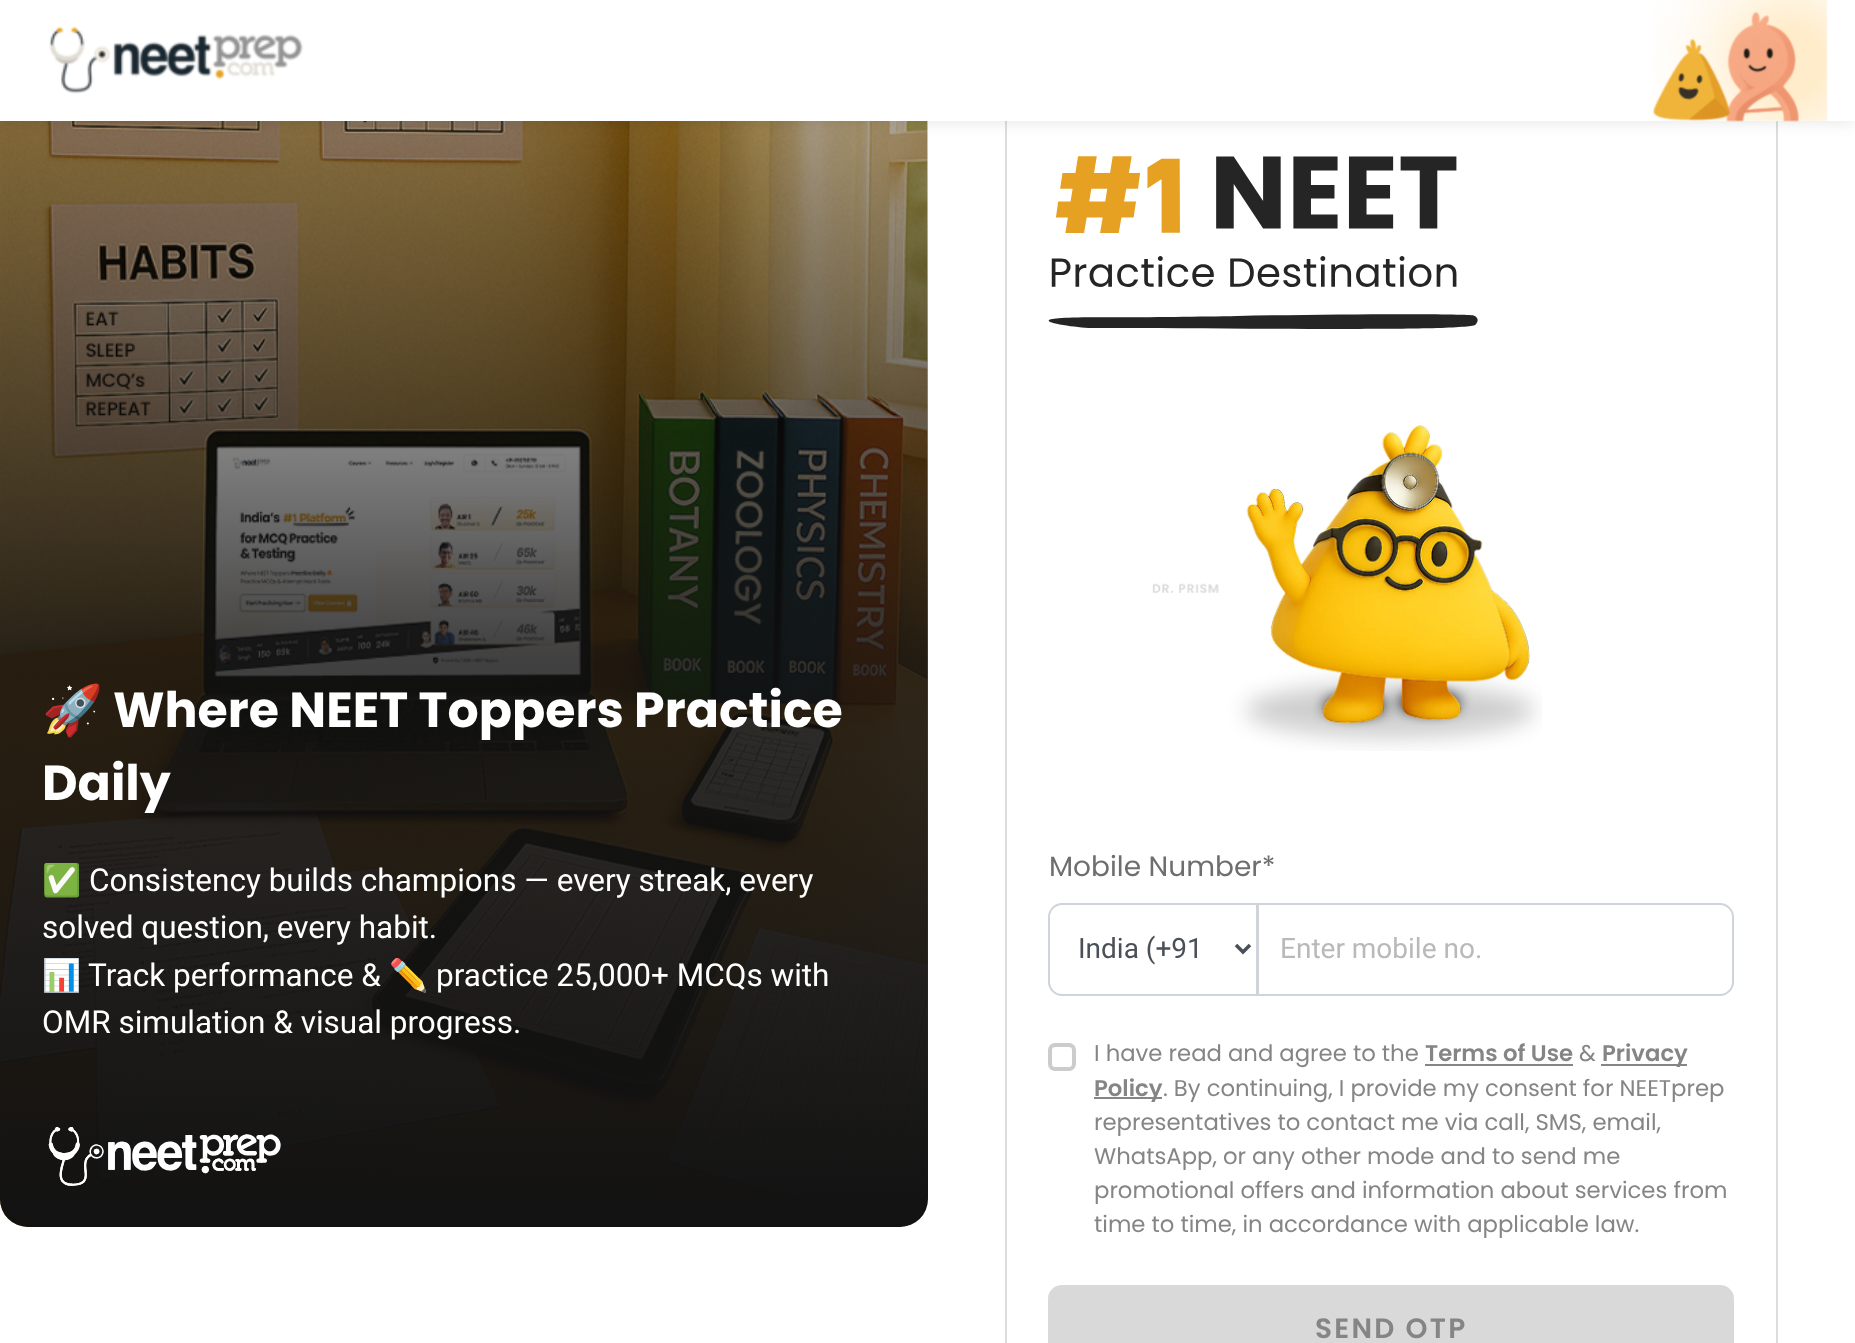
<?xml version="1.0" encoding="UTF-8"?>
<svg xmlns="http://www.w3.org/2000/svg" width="1855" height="1343">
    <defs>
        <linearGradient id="g1" gradientUnits="userSpaceOnUse" x1="464" y1="17" x2="464" y2="1227"><stop offset="0" stop-color="#121212" stop-opacity="0"/><stop offset="0.53" stop-color="#121212" stop-opacity="0.8"/><stop offset="1" stop-color="#121212"/></linearGradient>
        <filter id="blur1" x="-50%" y="-200%" width="200%" height="500%"><feGaussianBlur stdDeviation="7"/></filter>
    </defs>
    <rect width="100%" height="100%" fill="#FFFFFF"/>
    <image x="0" y="121" width="928" height="1106" href="img_03.png"/>
    <rect x="0" y="18" width="928" height="1209" rx="28" fill="url(#g1)"/>
    <rect x="1006" y="75" width="771" height="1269" fill="none" stroke="#DDDDDD" stroke-width="2"/>
    <rect x="0" y="4" width="1855" height="120" fill="#000000" fill-opacity="0.08" filter="url(#blur1)"/>
    <rect x="0" y="0" width="1855" height="121" fill="#FFFFFF"/>
    <image x="49" y="26" width="255" height="68" href="img_01.png"/>
    <image x="1652" y="0" width="176" height="122" href="img_02.png"/>
    <text x="42" y="727" font-family="Noto Color Emoji" font-size="49" font-weight="700" fill="#FFFFFF">🚀</text>
    <text x="113" y="727" font-family="Poppins" font-size="49" font-weight="700" fill="#FFFFFF">Where NEET Toppers Practice</text>
    <text x="42" y="800" font-family="Poppins" font-size="49" font-weight="700" fill="#FFFFFF">Daily</text>
    <text x="42" y="891" font-family="Noto Color Emoji" font-size="31.5" fill="#FFFFFF">✅</text>
    <text x="89" y="891" font-family="Roboto" font-size="31.5" fill="#FFFFFF">Consistency builds champions — every streak, every</text>
    <text x="42" y="938" font-family="Roboto" font-size="31.5" fill="#FFFFFF">solved question, every habit.</text>
    <text x="42" y="986" font-family="Noto Color Emoji" font-size="31.5" fill="#FFFFFF">📊</text>
    <text x="88" y="986" font-family="Roboto" font-size="31.5" fill="#FFFFFF">Track performance &amp;</text>
    <text x="389" y="986" font-family="Noto Color Emoji" font-size="31.5" fill="#FFFFFF">✏️</text>
    <text x="436" y="986" font-family="Roboto" font-size="31.5" fill="#FFFFFF">practice 25,000+ MCQs with</text>
    <text x="42" y="1033" font-family="Roboto" font-size="31.5" fill="#FFFFFF">OMR simulation &amp; visual progress.</text>
    <image x="48" y="1127" width="233" height="59" href="img_04.png"/>
    <image x="1048" y="156" width="430" height="173" href="img_05.png"/>
    <image x="1152" y="425" width="390" height="326" href="img_06.png"/>
    <text x="1049" y="876" font-family="Poppins" font-size="28" fill="#6E6E6E">Mobile Number*</text>
    <path d="M 1062 904 H 1257 V 995 H 1062 C 1055 995 1049 989 1049 982 V 917 C 1049 910 1055 904 1062 904 Z" fill="none" stroke="#CED4DA" stroke-width="2"/>
    <path d="M 1236 945 L 1243 952 L 1250 945" fill="none" stroke="#495057" stroke-width="3.5"/>
    <text x="1078" y="958" font-family="Roboto" font-size="28" fill="#495057">India (+91</text>
    <path d="M 1258 904 H 1720 C 1727 904 1733 910 1733 917 V 982 C 1733 989 1727 995 1720 995 H 1258 Z" fill="none" stroke="#CED4DA" stroke-width="2"/>
    <text x="1280" y="958" font-family="Roboto" font-size="28" fill="#B9B9B9">Enter mobile no.</text>
    <rect x="1050" y="1045" width="24" height="24" rx="5" fill="none" stroke="#CCCCCC" stroke-width="4"/>
    <text x="1094" y="1061" font-family="Poppins" font-size="22.75" fill="#858585">I have read and agree to the</text>
    <text x="1425" y="1061" font-family="Poppins" font-size="22.75" font-weight="600" fill="#858585">Terms of Use</text>
    <rect x="1425" y="1064" width="148" height="2" fill="#858585"/>
    <text x="1579" y="1061" font-family="Poppins" font-size="22.75" fill="#858585">&amp;</text>
    <rect x="1601" y="1064" width="86" height="2" fill="#858585"/>
    <text x="1602" y="1061" font-family="Poppins" font-size="22.75" font-weight="600" fill="#858585">Privacy</text>
    <rect x="1094" y="1097" width="68" height="2" fill="#858585"/>
    <text x="1094" y="1096" font-family="Poppins" font-size="22.75" font-weight="600" fill="#858585">Policy</text>
    <text x="1163" y="1096" font-family="Poppins" font-size="22.75" fill="#858585">. By continuing, I provide my consent for NEETprep</text>
    <text font-family="Poppins" font-size="22.75" fill="#858585">
        <tspan x="1094" y="1130">representatives to contact me via call, SMS, email,</tspan>
        <tspan x="1094" y="1164">WhatsApp, or any other mode and to send me</tspan>
        <tspan x="1094" y="1198">promotional offers and information about services from</tspan>
        <tspan x="1094" y="1232">time to time, in accordance with applicable law.</tspan>
    </text>
    <rect x="1048" y="1285" width="686" height="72" rx="14" fill="#D9D9D9"/>
    <text x="1315" y="1338" font-family="Poppins" font-size="28" font-weight="600" letter-spacing="2.25" fill="#858585">SEND OTP</text>
</svg>
